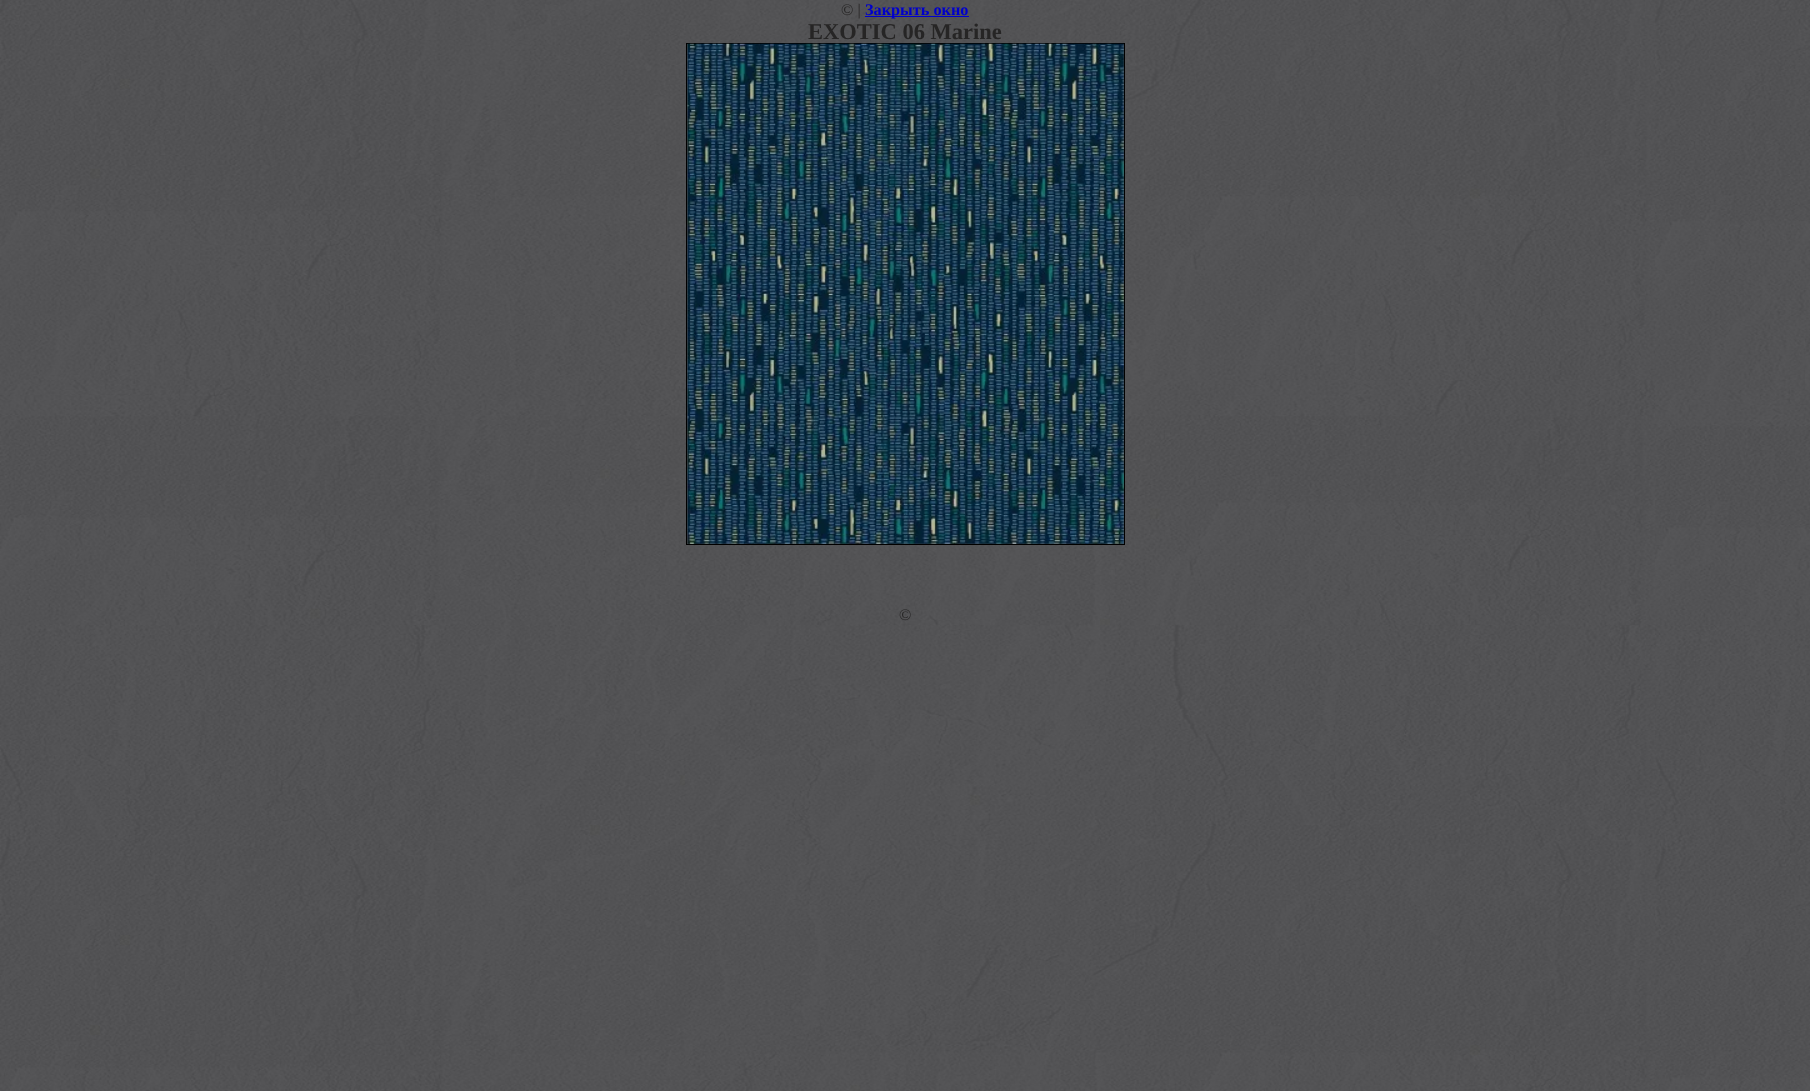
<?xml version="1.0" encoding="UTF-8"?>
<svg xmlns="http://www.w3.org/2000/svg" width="1810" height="1091">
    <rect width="100%" height="100%" fill="#FFFFFF"/>
    <image x="0" y="0" width="1810" height="1091" href="img_01.png"/>
    <text x="841" y="15" font-family="Liberation Serif" font-size="16.25" fill="#262525">© |</text>
    <rect x="865" y="16" width="104" height="1" fill="#0000CC"/>
    <text x="865" y="15" font-family="Liberation Serif" font-size="16.25" font-weight="700" fill="#0000CC">Закрыть окно</text>
    <text x="808" y="39" font-family="Liberation Serif" font-size="22.5" font-weight="700" fill="#262525">EXOTIC 06 Marine</text>
    <rect x="686.5" y="43.5" width="438" height="501" fill="none" stroke="#000000"/>
    <image x="687" y="43" width="437" height="501" href="img_02.png"/>
    <text x="899" y="620" font-family="Liberation Serif" font-size="16.25" fill="#262525">©</text>
</svg>
